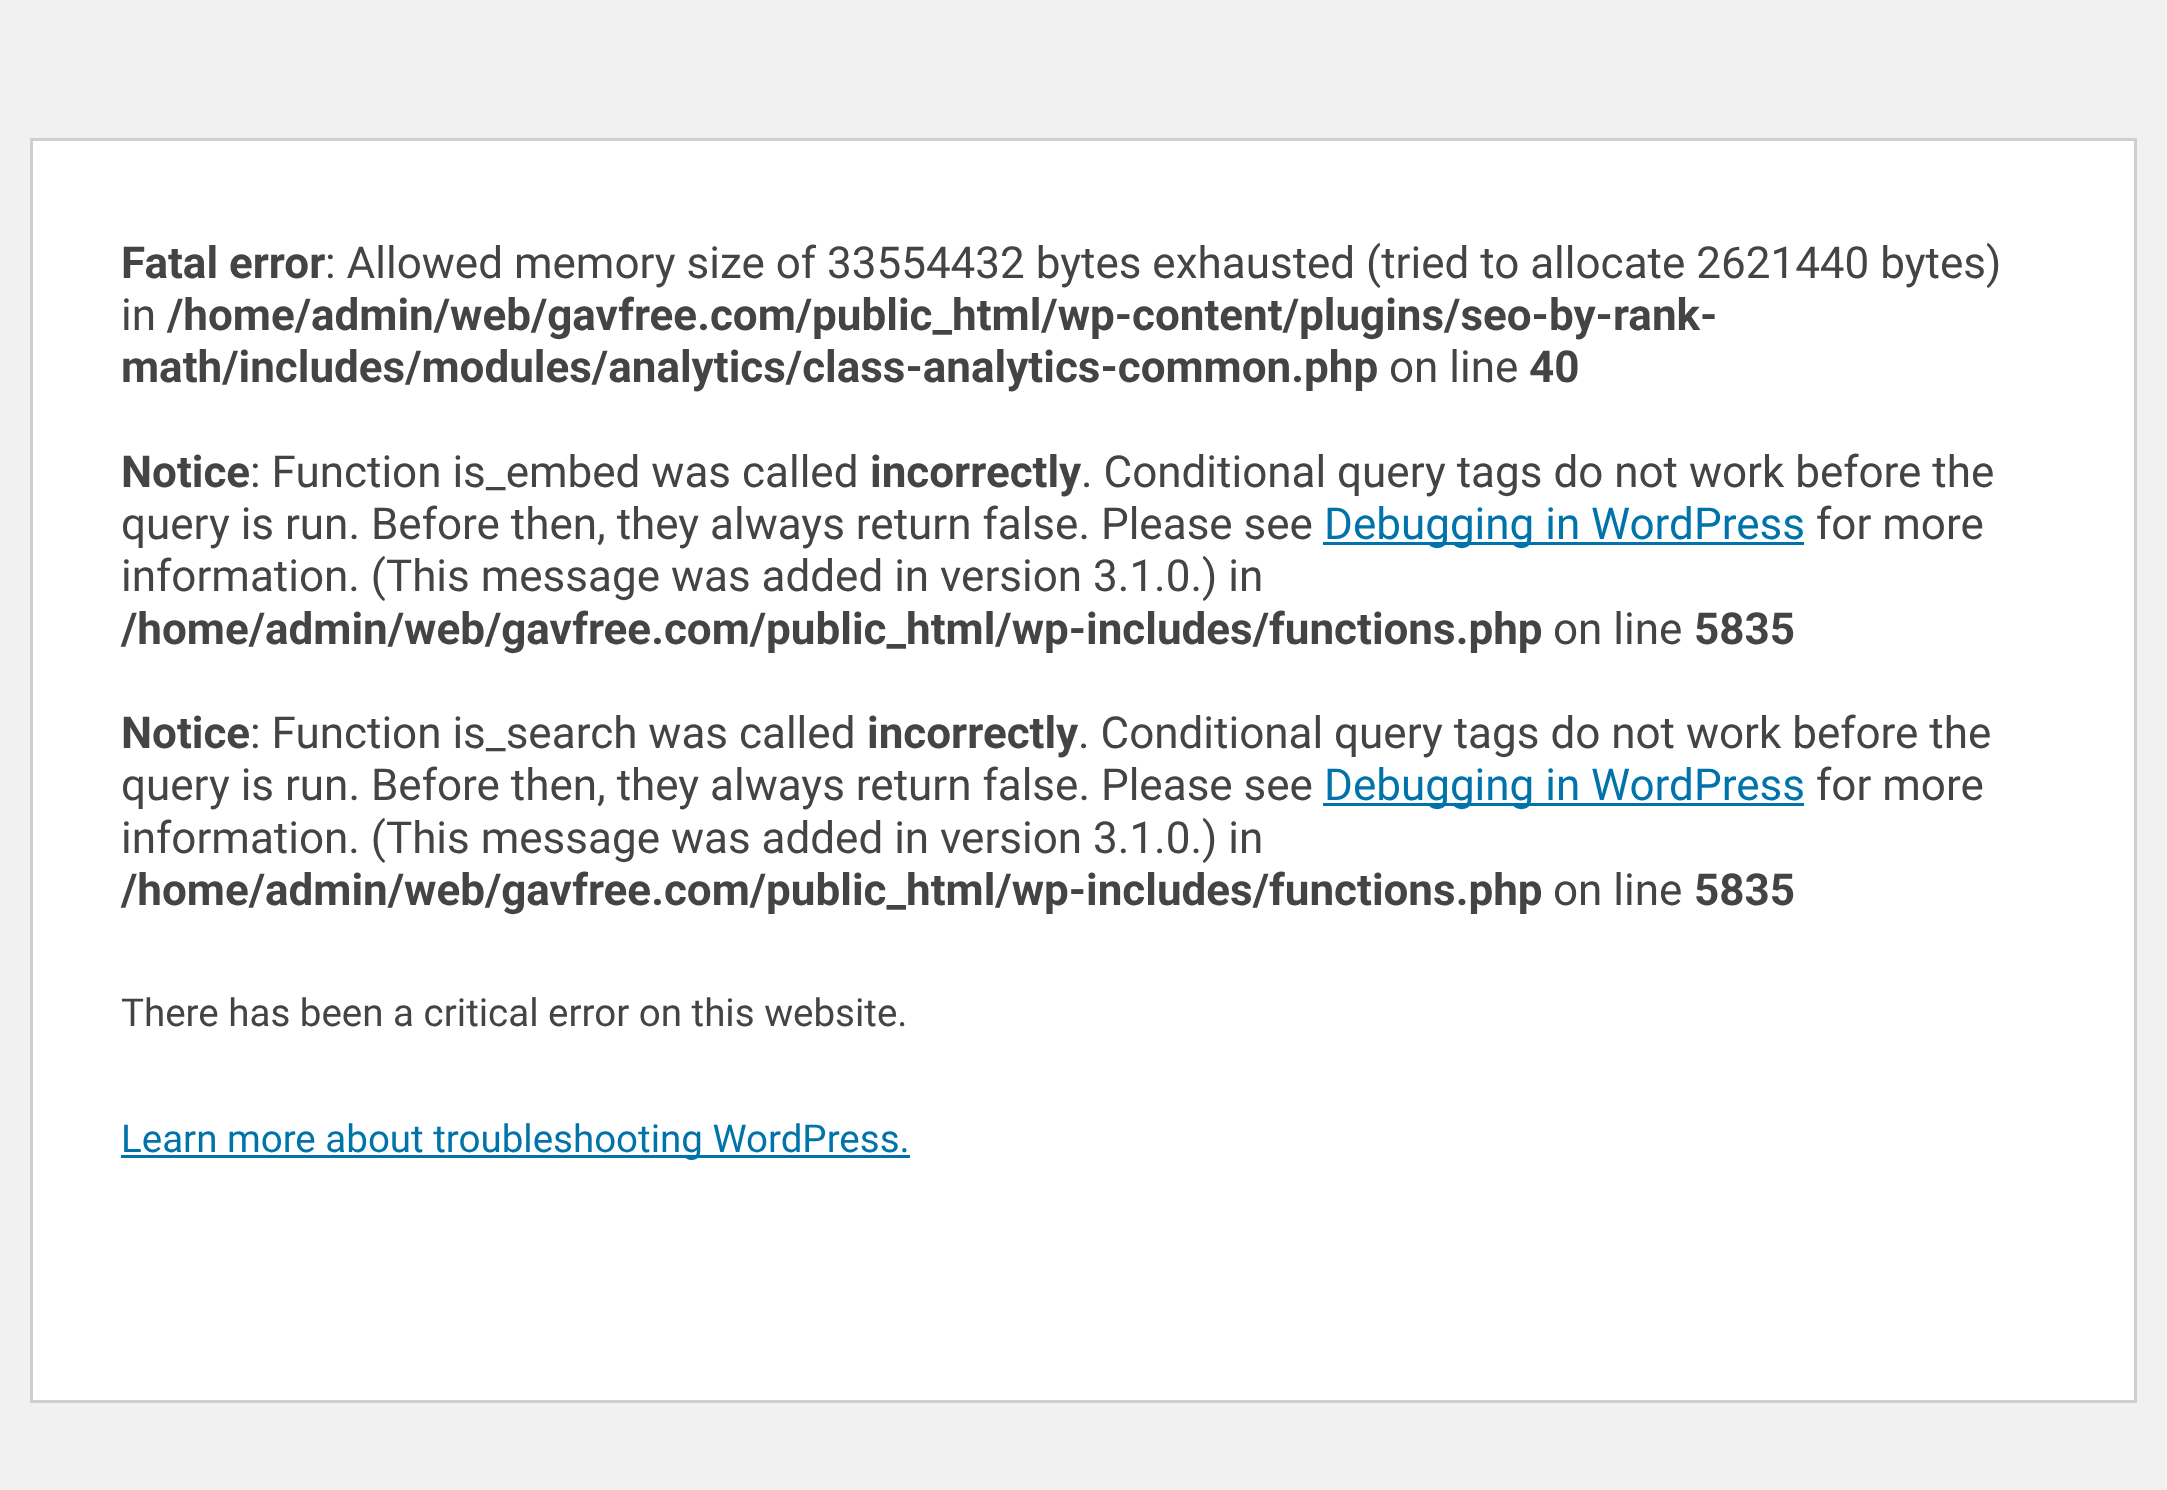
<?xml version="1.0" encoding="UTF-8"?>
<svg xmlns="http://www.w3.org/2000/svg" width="2167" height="1490">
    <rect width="100%" height="100%" fill="#F1F1F1"/>
    <rect x="31.5" y="139.5" width="2104" height="1262" fill="#FFFFFF" stroke="#CCD0D4" stroke-width="3"/>
    <text x="121" y="278" font-family="Roboto" font-size="44" font-weight="700" fill="#444444">Fatal error</text>
    <text x="325" y="278" font-family="Roboto" font-size="44" fill="#444444">: Allowed memory size of 33554432 bytes exhausted (tried to allocate 2621440 bytes)</text>
    <text x="121" y="330" font-family="Roboto" font-size="44" fill="#444444">in</text>
    <text x="167" y="330" font-family="Roboto" font-size="44" font-weight="700" fill="#444444">/home/admin/web/gavfree.com/public_html/wp-content/plugins/seo-by-rank-</text>
    <text x="121" y="382" font-family="Roboto" font-size="44" font-weight="700" fill="#444444">math/includes/modules/analytics/class-analytics-common.php</text>
    <text x="1389" y="382" font-family="Roboto" font-size="44" fill="#444444">on line</text>
    <text x="1529" y="382" font-family="Roboto" font-size="44" font-weight="700" fill="#444444">40</text>
    <text x="121" y="487" font-family="Roboto" font-size="44" font-weight="700" fill="#444444">Notice</text>
    <text x="250" y="487" font-family="Roboto" font-size="44" fill="#444444">: Function is_embed was called</text>
    <text x="870" y="487" font-family="Roboto" font-size="44" font-weight="700" fill="#444444">incorrectly</text>
    <text x="1081" y="487" font-family="Roboto" font-size="44" fill="#444444">. Conditional query tags do not work before the</text>
    <text x="121" y="539" font-family="Roboto" font-size="44" fill="#444444">query is run. Before then, they always return false. Please see</text>
    <rect x="1323" y="542" width="481" height="3" fill="#0073AA"/>
    <text x="1324" y="539" font-family="Roboto" font-size="44" fill="#0073AA">Debugging in WordPress</text>
    <text x="1816" y="539" font-family="Roboto" font-size="44" fill="#444444">for more</text>
    <text x="121" y="591" font-family="Roboto" font-size="44" fill="#444444">information. (This message was added in version 3.1.0.) in</text>
    <text x="121" y="644" font-family="Roboto" font-size="44" font-weight="700" fill="#444444">/home/admin/web/gavfree.com/public_html/wp-includes/functions.php</text>
    <text x="1553" y="644" font-family="Roboto" font-size="44" fill="#444444">on line</text>
    <text x="1694" y="644" font-family="Roboto" font-size="44" font-weight="700" fill="#444444">5835</text>
    <text x="121" y="748" font-family="Roboto" font-size="44" font-weight="700" fill="#444444">Notice</text>
    <text x="250" y="748" font-family="Roboto" font-size="44" fill="#444444">: Function is_search was called</text>
    <text x="867" y="748" font-family="Roboto" font-size="44" font-weight="700" fill="#444444">incorrectly</text>
    <text x="1078" y="748" font-family="Roboto" font-size="44" fill="#444444">. Conditional query tags do not work before the</text>
    <text x="121" y="800" font-family="Roboto" font-size="44" fill="#444444">query is run. Before then, they always return false. Please see</text>
    <rect x="1323" y="803" width="481" height="3" fill="#0073AA"/>
    <text x="1324" y="800" font-family="Roboto" font-size="44" fill="#0073AA">Debugging in WordPress</text>
    <text x="1816" y="800" font-family="Roboto" font-size="44" fill="#444444">for more</text>
    <text x="121" y="853" font-family="Roboto" font-size="44" fill="#444444">information. (This message was added in version 3.1.0.) in</text>
    <text x="121" y="905" font-family="Roboto" font-size="44" font-weight="700" fill="#444444">/home/admin/web/gavfree.com/public_html/wp-includes/functions.php</text>
    <text x="1553" y="905" font-family="Roboto" font-size="44" fill="#444444">on line</text>
    <text x="1694" y="905" font-family="Roboto" font-size="44" font-weight="700" fill="#444444">5835</text>
    <text x="121" y="1026" font-family="Roboto" font-size="38.5" fill="#444444">There has been a critical error on this website.</text>
    <rect x="121" y="1155" width="789" height="3" fill="#0073AA"/>
    <text x="121" y="1152" font-family="Roboto" font-size="38.5" fill="#0073AA">Learn more about troubleshooting WordPress.</text>
</svg>
